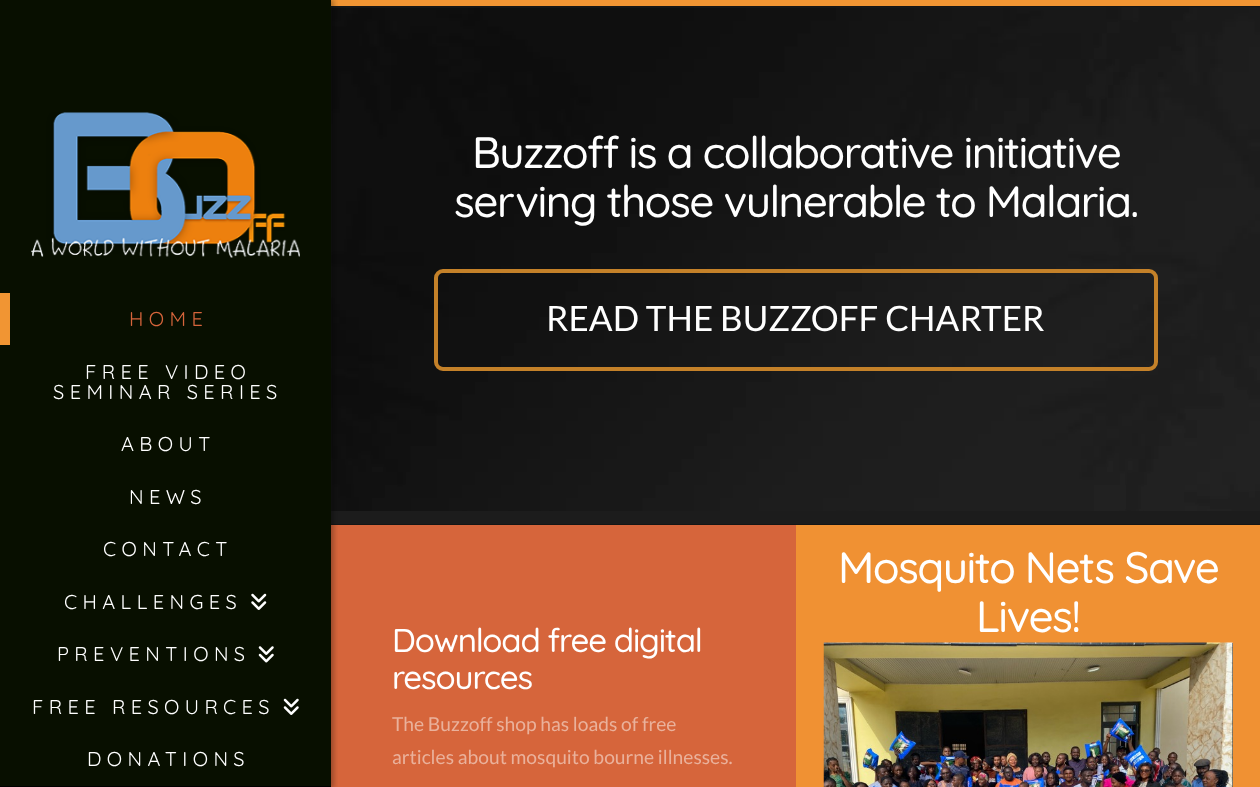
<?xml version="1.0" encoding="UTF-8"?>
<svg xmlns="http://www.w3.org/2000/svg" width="1260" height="787">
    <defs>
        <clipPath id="clip1"><rect x="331" y="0" width="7" height="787"/></clipPath>
        <filter id="blur1" x="-50%" y="-200%" width="200%" height="500%"><feGaussianBlur stdDeviation="2.5"/></filter>
    </defs>
    <rect width="100%" height="100%" fill="#080F00"/>
    <rect x="331" y="7" width="929" height="517" fill="#1C1C1C"/>
    <rect x="331" y="0" width="929" height="6" fill="#F19533"/>
    <image x="331" y="7" width="929" height="504" href="img_05.png"/>
    <rect x="331" y="6" width="929" height="1" fill="#151515"/>
    <rect x="331" y="524" width="929" height="1" fill="#151515"/>
    <rect x="331" y="525" width="465" height="262" fill="#D6653B"/>
    <g clip-path="url(#clip1)">
        <rect x="3" y="0" width="331" height="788" fill="#000000" fill-opacity="0.28" filter="url(#blur1)"/>
    </g>
    <rect x="0" y="786" width="331" height="1" fill="#000000"/>
    <image x="31" y="112" width="269" height="146" href="img_01.png"/>
    <rect x="0" y="293" width="10" height="52" fill="#F19533"/>
    <text x="129" y="326" font-family="Quicksand" font-size="20" letter-spacing="5.4" fill="#D6653B">HOME</text>
    <text x="85" y="379" font-family="Quicksand" font-size="20" letter-spacing="5.4" fill="#FFFFFF">FREE VIDEO</text>
    <text x="53" y="399" font-family="Quicksand" font-size="20" letter-spacing="5.4" fill="#FFFFFF">SEMINAR SERIES</text>
    <text x="121" y="451" font-family="Quicksand" font-size="20" letter-spacing="5.4" fill="#FFFFFF">ABOUT</text>
    <text x="129" y="504" font-family="Quicksand" font-size="20" letter-spacing="5.4" fill="#FFFFFF">NEWS</text>
    <text x="103" y="556" font-family="Quicksand" font-size="20" letter-spacing="5.4" fill="#FFFFFF">CONTACT</text>
    <text x="64" y="609" font-family="Quicksand" font-size="20" letter-spacing="5.4" fill="#FFFFFF">CHALLENGES</text>
    <image x="251" y="593" width="16" height="17" href="img_02.png"/>
    <text x="57" y="661" font-family="Quicksand" font-size="20" letter-spacing="5.4" fill="#FFFFFF">PREVENTIONS</text>
    <image x="258" y="646" width="16" height="17" href="img_03.png"/>
    <text x="32" y="714" font-family="Quicksand" font-size="20" letter-spacing="5.4" fill="#FFFFFF">FREE RESOURCES</text>
    <image x="283" y="698" width="16" height="17" href="img_04.png"/>
    <text x="87" y="766" font-family="Quicksand" font-size="20" letter-spacing="5.4" fill="#FFFFFF">DONATIONS</text>
    <text x="472" y="168" font-family="Quicksand" font-size="44" font-weight="500" letter-spacing="-1.55" fill="#FFFFFF">Buzzoff is a collaborative initiative</text>
    <text x="454" y="217" font-family="Quicksand" font-size="44" font-weight="500" letter-spacing="-1.55" fill="#FFFFFF">serving those vulnerable to Malaria.</text>
    <rect x="436" y="271" width="720" height="98" rx="7" fill="none" stroke="#C48129" stroke-width="4"/>
    <text x="546" y="331" font-family="Lato" font-size="35" fill="#FFFFFF">READ THE BUZZOFF CHARTER</text>
    <rect x="796" y="525" width="464" height="262" fill="#F09133"/>
    <text x="838" y="583" font-family="Quicksand" font-size="44" font-weight="500" letter-spacing="-1.55" fill="#FFFFFF">Mosquito Nets Save</text>
    <text x="976" y="632" font-family="Quicksand" font-size="44" font-weight="500" letter-spacing="-1.55" fill="#FFFFFF">Lives!</text>
    <rect x="1232" y="643" width="1" height="144" fill="#121212"/>
    <image x="823" y="642" width="410" height="145" href="img_06.png"/>
    <text font-family="Quicksand" font-size="33" font-weight="500" letter-spacing="-1.15" fill="#FFFFFF">
        <tspan x="392" y="652">Download free digital</tspan>
        <tspan x="392" y="689">resources</tspan>
    </text>
    <text font-family="Lato" font-size="19.25" fill="#EAB19B">
        <tspan x="392" y="731">The Buzzoff shop has loads of free</tspan>
        <tspan x="392" y="764">articles about mosquito bourne illnesses.</tspan>
    </text>
</svg>
